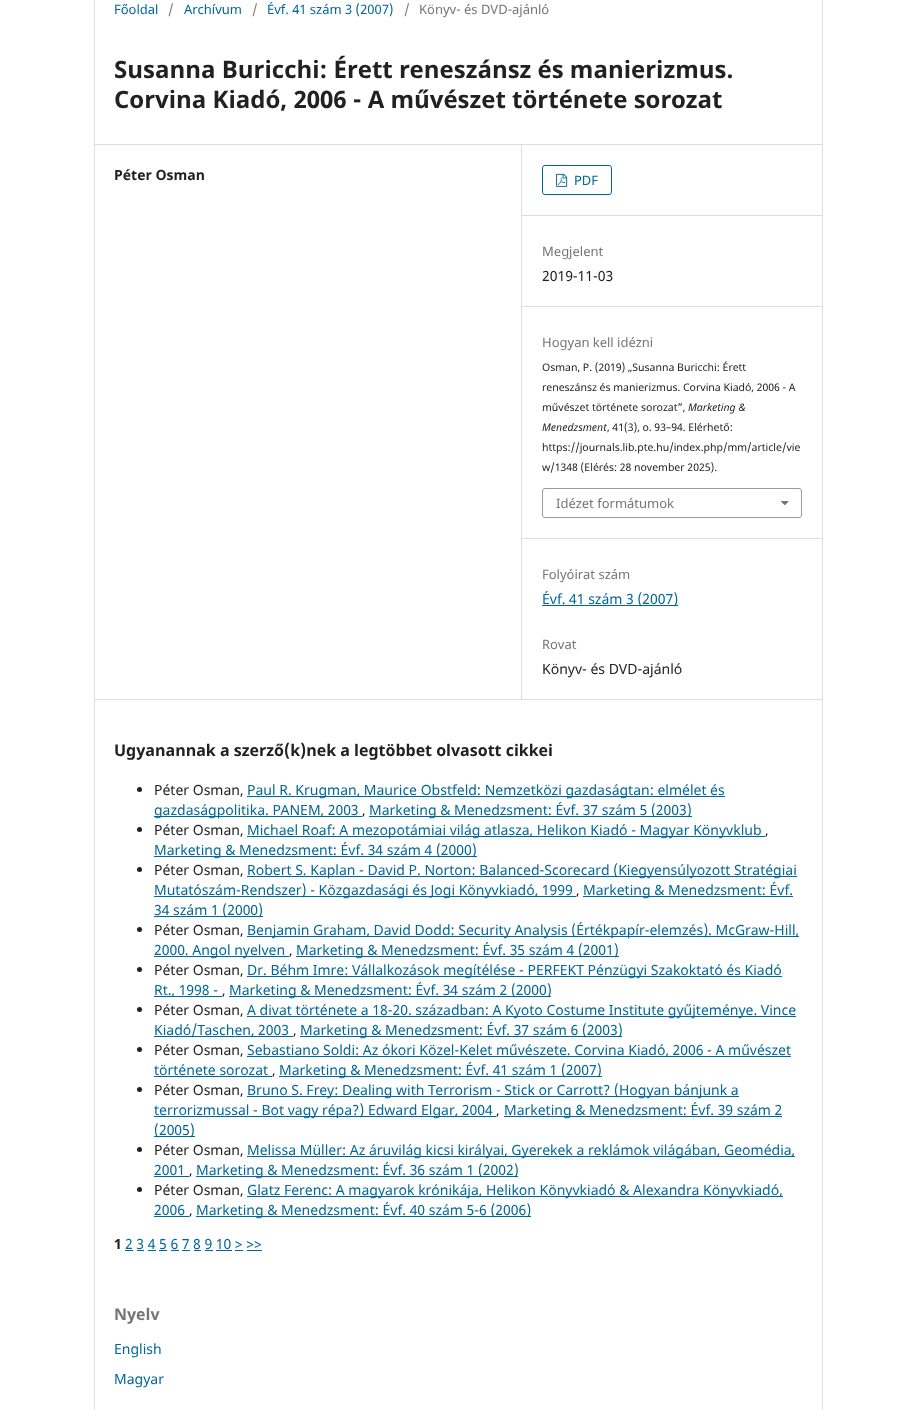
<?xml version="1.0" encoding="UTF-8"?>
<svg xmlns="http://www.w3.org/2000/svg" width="916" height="1410">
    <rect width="100%" height="100%" fill="#FFFFFF"/>
    <rect x="94" y="144" width="728" height="1" fill="#DDDDDD"/>
    <rect x="94" y="699" width="728" height="1" fill="#DDDDDD"/>
    <rect x="94" y="0" width="1" height="1410" fill="#DDDDDD"/>
    <text x="114" y="14" font-family="Noto Sans" font-size="13" fill="#006798">Főoldal</text>
    <text x="168" y="14" font-family="Noto Sans" font-size="13" fill="#757575">/</text>
    <text x="184" y="14" font-family="Noto Sans" font-size="13" fill="#006798">Archívum</text>
    <text x="252" y="14" font-family="Noto Sans" font-size="13" fill="#757575">/</text>
    <text x="267" y="14" font-family="Noto Sans" font-size="13" fill="#006798">Évf. 41 szám 3 (2007)</text>
    <text x="404" y="14" font-family="Noto Sans" font-size="13" fill="#757575">/</text>
    <text x="419" y="14" font-family="Noto Sans" font-size="13" fill="#757575">Könyv- és DVD-ajánló</text>
    <text font-family="Noto Sans" font-size="24" font-weight="700" fill="#212121">
        <tspan x="114" y="78">Susanna Buricchi: Érett reneszánsz és manierizmus.</tspan>
        <tspan x="114" y="108">Corvina Kiadó, 2006 - A művészet története sorozat</tspan>
    </text>
    <text x="114" y="180" font-family="Noto Sans" font-size="14" font-weight="700" fill="#212121">Péter Osman</text>
    <rect x="521" y="145" width="1" height="554" fill="#DDDDDD"/>
    <rect x="522" y="215" width="300" height="1" fill="#DDDDDD"/>
    <rect x="542.5" y="165.5" width="69" height="29" rx="2.5" fill="none" stroke="#006798"/>
    <image x="556" y="173" width="12" height="14" href="img_01.png"/>
    <text x="574" y="185" font-family="Noto Sans" font-size="13" fill="#006798">PDF</text>
    <rect x="522" y="306" width="300" height="1" fill="#DDDDDD"/>
    <text x="542" y="256" font-family="Noto Sans" font-size="13" fill="#757575">Megjelent</text>
    <text x="542" y="281" font-family="Noto Sans" font-size="14" fill="#212121">2019-11-03</text>
    <rect x="522" y="538" width="300" height="1" fill="#DDDDDD"/>
    <text x="542" y="347" font-family="Noto Sans" font-size="13" fill="#757575">Hogyan kell idézni</text>
    <text font-family="Noto Sans" font-size="10.5" fill="#212121">
        <tspan x="542" y="371">Osman, P. (2019) „Susanna Buricchi: Érett</tspan>
        <tspan x="542" y="391">reneszánsz és manierizmus. Corvina Kiadó, 2006 - A</tspan>
        <tspan x="542" y="411">művészet története sorozat”,</tspan>
    </text>
    <text x="688" y="411" font-family="Noto Sans" font-size="10.5" font-style="italic" fill="#212121">Marketing &amp;</text>
    <text x="542" y="431" font-family="Noto Sans" font-size="10.5" font-style="italic" fill="#212121">Menedzsment</text>
    <text x="607" y="431" font-family="Noto Sans" font-size="10.5" fill="#212121">, 41(3), o. 93–94. Elérhető:</text>
    <text font-family="Noto Sans" font-size="10.5" fill="#212121">
        <tspan x="542" y="451">https://journals.lib.pte.hu/index.php/mm/article/vie</tspan>
        <tspan x="542" y="471">w/1348 (Elérés: 28 november 2025).</tspan>
    </text>
    <rect x="542.5" y="488.5" width="259" height="29" rx="2.5" fill="none" stroke="#999999"/>
    <text x="556" y="508" font-family="Noto Sans" font-size="13" fill="#757575">Idézet formátumok</text>
    <image x="781" y="501" width="8" height="5" href="img_02.png"/>
    <text x="542" y="579" font-family="Noto Sans" font-size="13" fill="#757575">Folyóirat szám</text>
    <rect x="542" y="605" width="136" height="1" fill="#006798"/>
    <text x="542" y="604" font-family="Noto Sans" font-size="14" fill="#006798">Évf. 41 szám 3 (2007)</text>
    <text x="542" y="649" font-family="Noto Sans" font-size="13" fill="#757575">Rovat</text>
    <text x="542" y="674" font-family="Noto Sans" font-size="14" fill="#212121">Könyv- és DVD-ajánló</text>
    <text x="114" y="756" font-family="Noto Sans" font-size="16" font-weight="700" fill="#212121">Ugyanannak a szerző(k)nek a legtöbbet olvasott cikkei</text>
    <circle cx="139.5" cy="789.5" r="2.5" fill="#212121"/>
    <text x="154" y="795" font-family="Noto Sans" font-size="14" fill="#212121">Péter Osman,</text>
    <rect x="247" y="796" width="478" height="1" fill="#006798"/>
    <text x="247" y="795" font-family="Noto Sans" font-size="14" fill="#006798">Paul R. Krugman, Maurice Obstfeld: Nemzetközi gazdaságtan: elmélet és</text>
    <rect x="154" y="816" width="208" height="1" fill="#006798"/>
    <text x="154" y="815" font-family="Noto Sans" font-size="14" fill="#006798">gazdaságpolitika. PANEM, 2003</text>
    <text x="362" y="815" font-family="Noto Sans" font-size="14" fill="#212121">,</text>
    <rect x="369" y="816" width="323" height="1" fill="#006798"/>
    <text x="369" y="815" font-family="Noto Sans" font-size="14" fill="#006798">Marketing &amp; Menedzsment: Évf. 37 szám 5 (2003)</text>
    <circle cx="139.5" cy="829.5" r="2.5" fill="#212121"/>
    <text x="154" y="835" font-family="Noto Sans" font-size="14" fill="#212121">Péter Osman,</text>
    <rect x="247" y="836" width="518" height="1" fill="#006798"/>
    <text x="247" y="835" font-family="Noto Sans" font-size="14" fill="#006798">Michael Roaf: A mezopotámiai világ atlasza, Helikon Kiadó - Magyar Könyvklub</text>
    <text x="765" y="835" font-family="Noto Sans" font-size="14" fill="#212121">,</text>
    <rect x="154" y="856" width="323" height="1" fill="#006798"/>
    <text x="154" y="855" font-family="Noto Sans" font-size="14" fill="#006798">Marketing &amp; Menedzsment: Évf. 34 szám 4 (2000)</text>
    <circle cx="139.5" cy="869.5" r="2.5" fill="#212121"/>
    <text x="154" y="875" font-family="Noto Sans" font-size="14" fill="#212121">Péter Osman,</text>
    <rect x="247" y="876" width="550" height="1" fill="#006798"/>
    <text x="247" y="875" font-family="Noto Sans" font-size="14" fill="#006798">Robert S. Kaplan - David P. Norton: Balanced-Scorecard (Kiegyensúlyozott Stratégiai</text>
    <rect x="154" y="896" width="422" height="1" fill="#006798"/>
    <text x="154" y="895" font-family="Noto Sans" font-size="14" fill="#006798">Mutatószám-Rendszer) - Közgazdasági és Jogi Könyvkiadó, 1999</text>
    <text x="576" y="895" font-family="Noto Sans" font-size="14" fill="#212121">,</text>
    <rect x="583" y="896" width="210" height="1" fill="#006798"/>
    <text x="583" y="895" font-family="Noto Sans" font-size="14" fill="#006798">Marketing &amp; Menedzsment: Évf.</text>
    <rect x="154" y="916" width="109" height="1" fill="#006798"/>
    <text x="154" y="915" font-family="Noto Sans" font-size="14" fill="#006798">34 szám 1 (2000)</text>
    <circle cx="139.5" cy="929.5" r="2.5" fill="#212121"/>
    <text x="154" y="935" font-family="Noto Sans" font-size="14" fill="#212121">Péter Osman,</text>
    <rect x="247" y="936" width="552" height="1" fill="#006798"/>
    <text x="247" y="935" font-family="Noto Sans" font-size="14" fill="#006798">Benjamin Graham, David Dodd: Security Analysis (Értékpapír-elemzés). McGraw-Hill,</text>
    <rect x="154" y="956" width="135" height="1" fill="#006798"/>
    <text x="154" y="955" font-family="Noto Sans" font-size="14" fill="#006798">2000. Angol nyelven</text>
    <text x="289" y="955" font-family="Noto Sans" font-size="14" fill="#212121">,</text>
    <rect x="296" y="956" width="323" height="1" fill="#006798"/>
    <text x="296" y="955" font-family="Noto Sans" font-size="14" fill="#006798">Marketing &amp; Menedzsment: Évf. 35 szám 4 (2001)</text>
    <circle cx="139.5" cy="969.5" r="2.5" fill="#212121"/>
    <text x="154" y="975" font-family="Noto Sans" font-size="14" fill="#212121">Péter Osman,</text>
    <rect x="247" y="976" width="535" height="1" fill="#006798"/>
    <text x="247" y="975" font-family="Noto Sans" font-size="14" fill="#006798">Dr. Béhm Imre: Vállalkozások megítélése - PERFEKT Pénzügyi Szakoktató és Kiadó</text>
    <rect x="154" y="996" width="68" height="1" fill="#006798"/>
    <text x="154" y="995" font-family="Noto Sans" font-size="14" fill="#006798">Rt., 1998 -</text>
    <text x="222" y="995" font-family="Noto Sans" font-size="14" fill="#212121">,</text>
    <rect x="229" y="996" width="322" height="1" fill="#006798"/>
    <text x="229" y="995" font-family="Noto Sans" font-size="14" fill="#006798">Marketing &amp; Menedzsment: Évf. 34 szám 2 (2000)</text>
    <circle cx="139.5" cy="1009.5" r="2.5" fill="#212121"/>
    <text x="154" y="1015" font-family="Noto Sans" font-size="14" fill="#212121">Péter Osman,</text>
    <rect x="247" y="1016" width="549" height="1" fill="#006798"/>
    <text x="247" y="1015" font-family="Noto Sans" font-size="14" fill="#006798">A divat története a 18-20. században: A Kyoto Costume Institute gyűjteménye. Vince</text>
    <rect x="154" y="1036" width="139" height="1" fill="#006798"/>
    <text x="154" y="1035" font-family="Noto Sans" font-size="14" fill="#006798">Kiadó/Taschen, 2003</text>
    <text x="293" y="1035" font-family="Noto Sans" font-size="14" fill="#212121">,</text>
    <rect x="300" y="1036" width="322" height="1" fill="#006798"/>
    <text x="300" y="1035" font-family="Noto Sans" font-size="14" fill="#006798">Marketing &amp; Menedzsment: Évf. 37 szám 6 (2003)</text>
    <circle cx="139.5" cy="1049.5" r="2.5" fill="#212121"/>
    <text x="154" y="1055" font-family="Noto Sans" font-size="14" fill="#212121">Péter Osman,</text>
    <rect x="247" y="1056" width="544" height="1" fill="#006798"/>
    <text x="247" y="1055" font-family="Noto Sans" font-size="14" fill="#006798">Sebastiano Soldi: Az ókori Közel-Kelet művészete. Corvina Kiadó, 2006 - A művészet</text>
    <text x="154" y="1075" font-family="Noto Sans" font-size="14" fill="#006798">története sorozat</text>
    <rect x="154" y="1076" width="118" height="1" fill="#006798"/>
    <text x="272" y="1075" font-family="Noto Sans" font-size="14" fill="#212121">,</text>
    <rect x="279" y="1076" width="323" height="1" fill="#006798"/>
    <text x="279" y="1075" font-family="Noto Sans" font-size="14" fill="#006798">Marketing &amp; Menedzsment: Évf. 41 szám 1 (2007)</text>
    <circle cx="139.5" cy="1089.5" r="2.5" fill="#212121"/>
    <text x="154" y="1095" font-family="Noto Sans" font-size="14" fill="#212121">Péter Osman,</text>
    <rect x="247" y="1096" width="492" height="1" fill="#006798"/>
    <text x="247" y="1095" font-family="Noto Sans" font-size="14" fill="#006798">Bruno S. Frey: Dealing with Terrorism - Stick or Carrott? (Hogyan bánjunk a</text>
    <rect x="154" y="1116" width="342" height="1" fill="#006798"/>
    <text x="154" y="1115" font-family="Noto Sans" font-size="14" fill="#006798">terrorizmussal - Bot vagy répa?) Edward Elgar, 2004</text>
    <text x="496" y="1115" font-family="Noto Sans" font-size="14" fill="#212121">,</text>
    <rect x="504" y="1116" width="278" height="1" fill="#006798"/>
    <text x="504" y="1115" font-family="Noto Sans" font-size="14" fill="#006798">Marketing &amp; Menedzsment: Évf. 39 szám 2</text>
    <rect x="154" y="1136" width="41" height="1" fill="#006798"/>
    <text x="154" y="1135" font-family="Noto Sans" font-size="14" fill="#006798">(2005)</text>
    <circle cx="139.5" cy="1149.5" r="2.5" fill="#212121"/>
    <text x="154" y="1155" font-family="Noto Sans" font-size="14" fill="#212121">Péter Osman,</text>
    <rect x="247" y="1156" width="548" height="1" fill="#006798"/>
    <text x="247" y="1155" font-family="Noto Sans" font-size="14" fill="#006798">Melissa Müller: Az áruvilág kicsi királyai, Gyerekek a reklámok világában, Geomédia,</text>
    <text x="154" y="1175" font-family="Noto Sans" font-size="14" fill="#006798">2001</text>
    <rect x="154" y="1176" width="35" height="1" fill="#006798"/>
    <text x="189" y="1175" font-family="Noto Sans" font-size="14" fill="#212121">,</text>
    <rect x="196" y="1176" width="322" height="1" fill="#006798"/>
    <text x="196" y="1175" font-family="Noto Sans" font-size="14" fill="#006798">Marketing &amp; Menedzsment: Évf. 36 szám 1 (2002)</text>
    <circle cx="139.5" cy="1189.5" r="2.5" fill="#212121"/>
    <text x="154" y="1195" font-family="Noto Sans" font-size="14" fill="#212121">Péter Osman,</text>
    <rect x="247" y="1196" width="536" height="1" fill="#006798"/>
    <text x="247" y="1195" font-family="Noto Sans" font-size="14" fill="#006798">Glatz Ferenc: A magyarok krónikája, Helikon Könyvkiadó &amp; Alexandra Könyvkiadó,</text>
    <text x="154" y="1215" font-family="Noto Sans" font-size="14" fill="#006798">2006</text>
    <rect x="154" y="1216" width="35" height="1" fill="#006798"/>
    <text x="189" y="1215" font-family="Noto Sans" font-size="14" fill="#212121">,</text>
    <rect x="196" y="1216" width="335" height="1" fill="#006798"/>
    <text x="196" y="1215" font-family="Noto Sans" font-size="14" fill="#006798">Marketing &amp; Menedzsment: Évf. 40 szám 5-6 (2006)</text>
    <text x="114" y="1249" font-family="Noto Sans" font-size="14" font-weight="700" fill="#212121">1</text>
    <text x="125" y="1249" font-family="Noto Sans" font-size="14" fill="#006798">2 3 4 5 6 7 8 9 10 &gt; &gt;&gt;</text>
    <rect x="125" y="1250" width="8" height="1" fill="#006798"/>
    <rect x="137" y="1250" width="7" height="1" fill="#006798"/>
    <rect x="148" y="1250" width="8" height="1" fill="#006798"/>
    <rect x="159" y="1250" width="8" height="1" fill="#006798"/>
    <rect x="171" y="1250" width="8" height="1" fill="#006798"/>
    <rect x="182" y="1250" width="8" height="1" fill="#006798"/>
    <rect x="194" y="1250" width="7" height="1" fill="#006798"/>
    <rect x="205" y="1250" width="8" height="1" fill="#006798"/>
    <rect x="216" y="1250" width="16" height="1" fill="#006798"/>
    <rect x="235" y="1250" width="8" height="1" fill="#006798"/>
    <rect x="247" y="1250" width="15" height="1" fill="#006798"/>
    <rect x="822" y="0" width="1" height="1410" fill="#DDDDDD"/>
    <text x="114" y="1320" font-family="Noto Sans" font-size="16" font-weight="700" fill="#757575">Nyelv</text>
    <text x="114" y="1354" font-family="Noto Sans" font-size="14" fill="#006798">English</text>
    <text x="114" y="1384" font-family="Noto Sans" font-size="14" fill="#006798">Magyar</text>
</svg>
